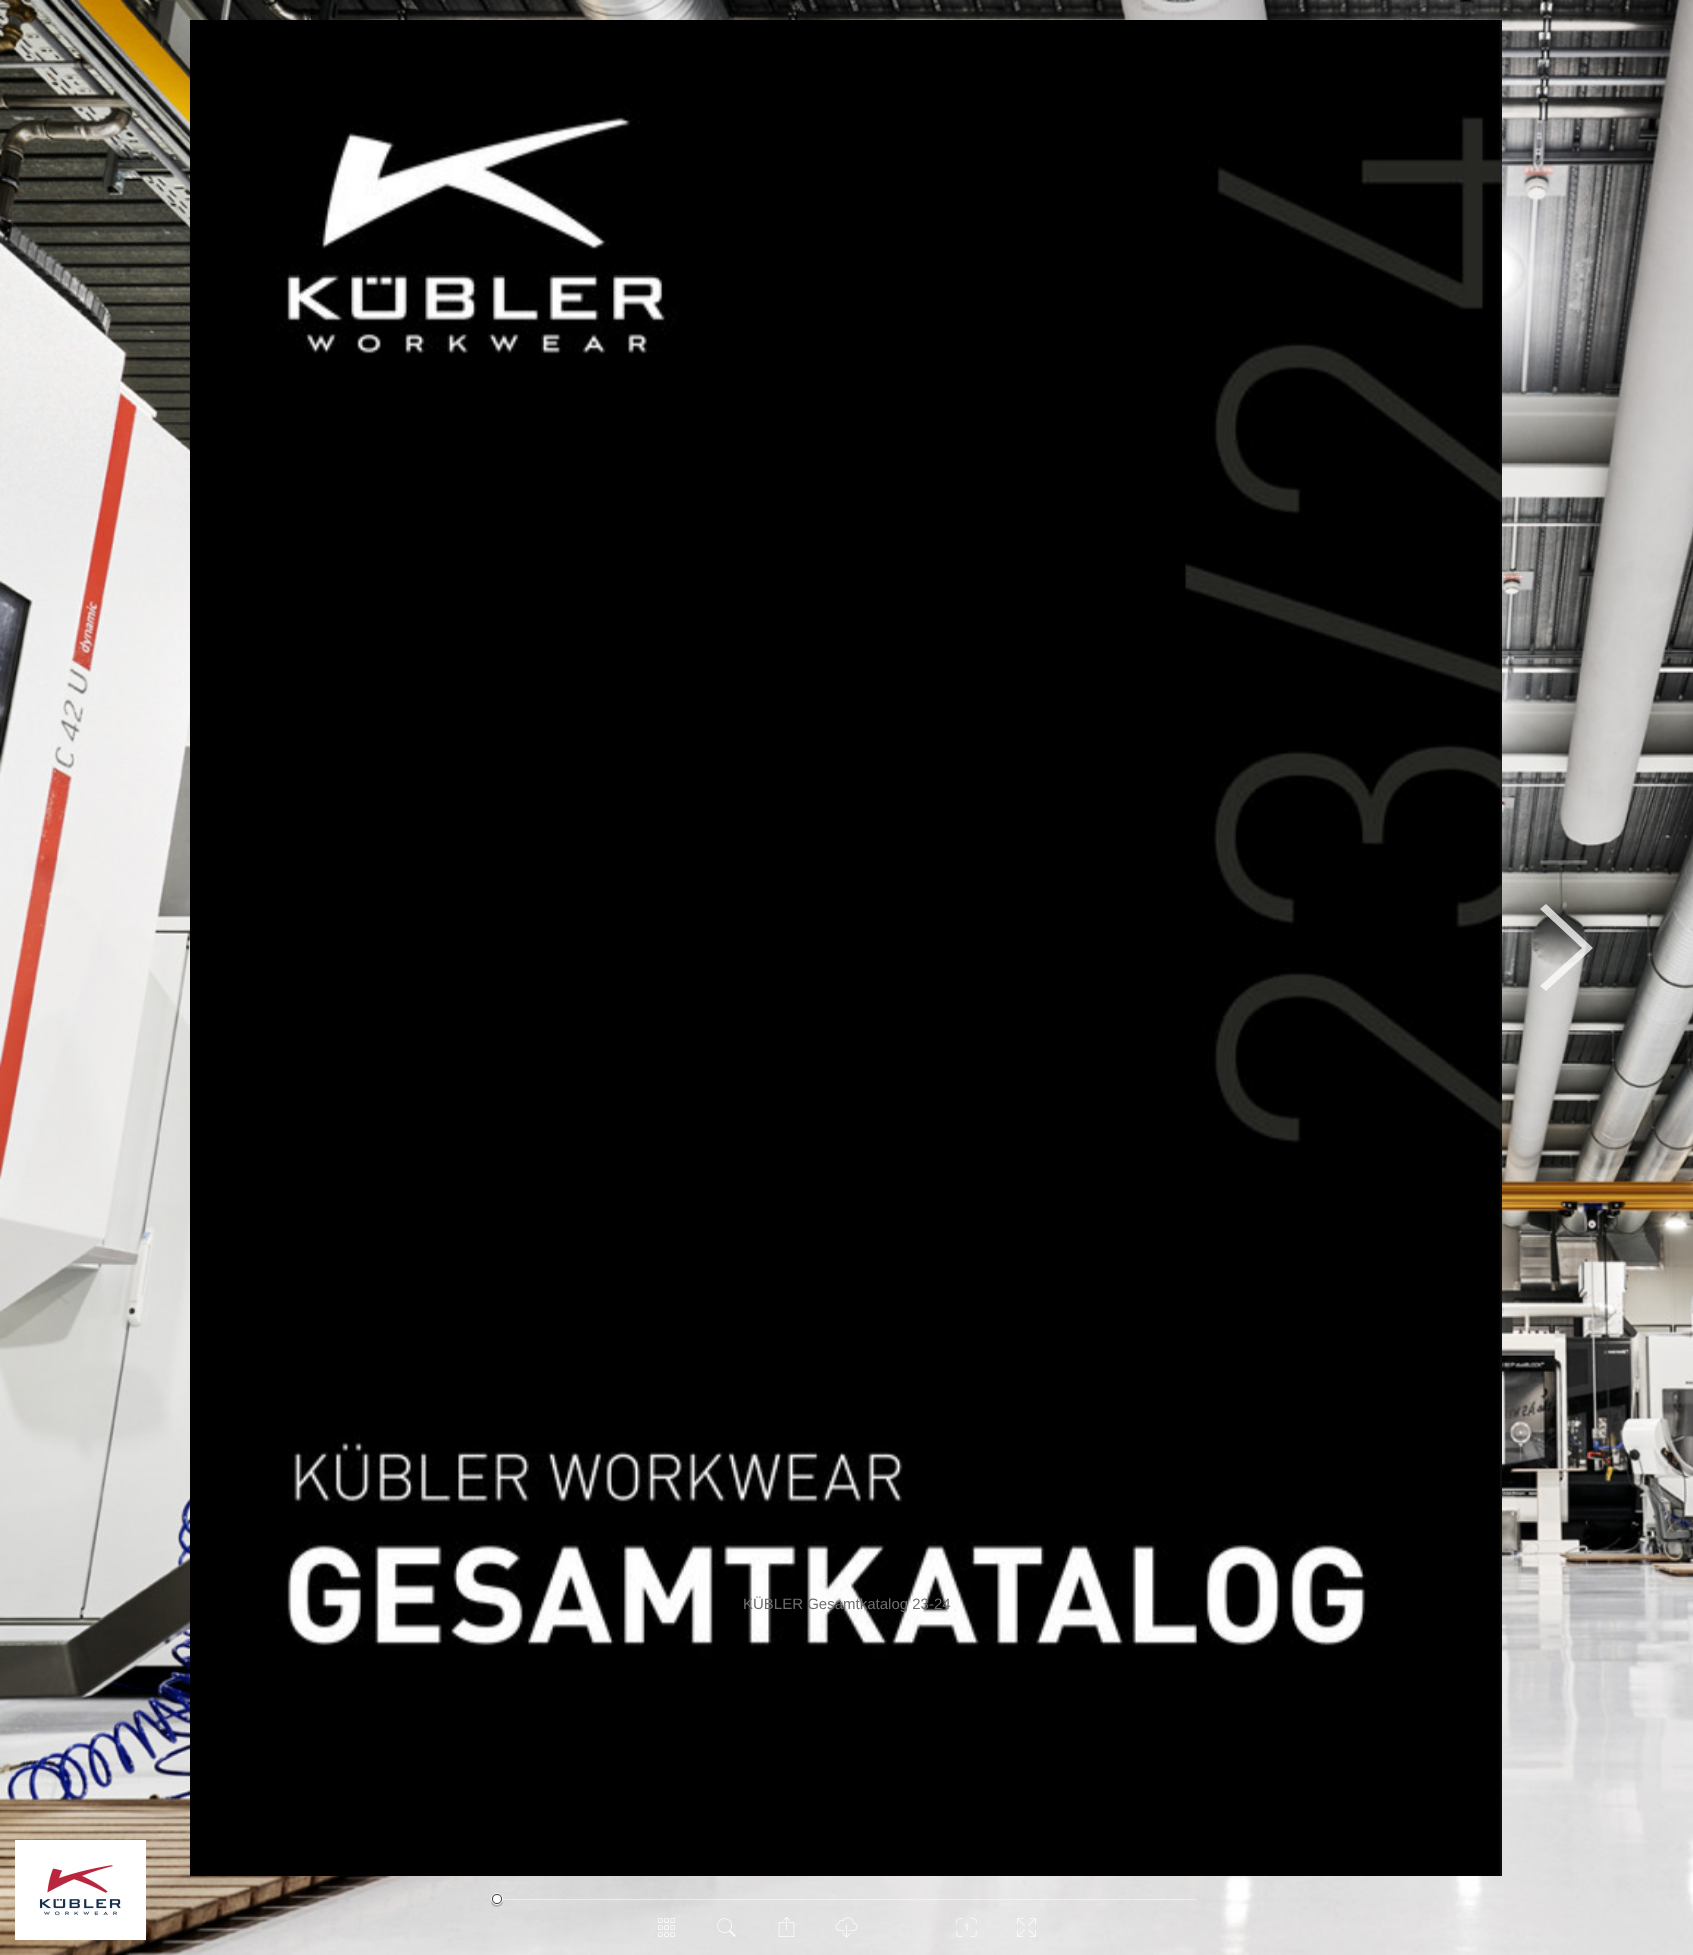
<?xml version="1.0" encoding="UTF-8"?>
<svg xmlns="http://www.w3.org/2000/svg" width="1693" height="1955">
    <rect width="100%" height="100%" fill="#FFFFFF"/>
    <image x="0" y="0" width="1693" height="1955" href="img_01.png"/>
    <image x="192" y="1875" width="1309" height="1" href="img_04.png"/>
    <image x="190" y="1875" width="1312" height="1" href="img_03.png"/>
    <image x="190" y="20" width="1312" height="1856" href="img_02.png"/>
    <path d="M 1540 909 L 1546 904 L 1593 948 L 1546 991 L 1540 986 L 1582 948 Z" fill="#FFFFFF" fill-opacity="0.75"/>
    <text x="743" y="1609" font-family="Liberation Sans" font-size="15" fill="#6F6F6F">KÜBLER Gesamtkatalog 23-24</text>
    <image x="15" y="1840" width="131" height="100" href="img_05.png"/>
    <path d="M 491 1900 C 489.5 1909 504.5 1909 503 1900 C 502 1906.5 492 1906.5 491 1900 Z" fill="#000000" fill-opacity="0.2"/>
    <rect x="497" y="1899" width="700" height="1" fill="#FFFFFF" fill-opacity="0.5"/>
    <circle cx="497" cy="1899" r="5.5" fill="#333333" stroke="#FFFFFF"/>
    <circle cx="497" cy="1899" r="4" fill="#FFFFFF"/>
    <image x="658" y="1918" width="17" height="19" href="img_06.png"/>
    <image x="717" y="1918" width="19" height="19" href="img_07.png"/>
    <image x="778" y="1917" width="17" height="20" href="img_08.png"/>
    <image x="835" y="1917" width="23" height="21" href="img_09.png"/>
    <image x="956" y="1918" width="21" height="19" href="img_10.png"/>
    <text x="964" y="1931" font-family="Open Sans" font-size="10" fill="#FDFDFD">1</text>
    <image x="1017" y="1918" width="19" height="19" href="img_11.png"/>
</svg>
